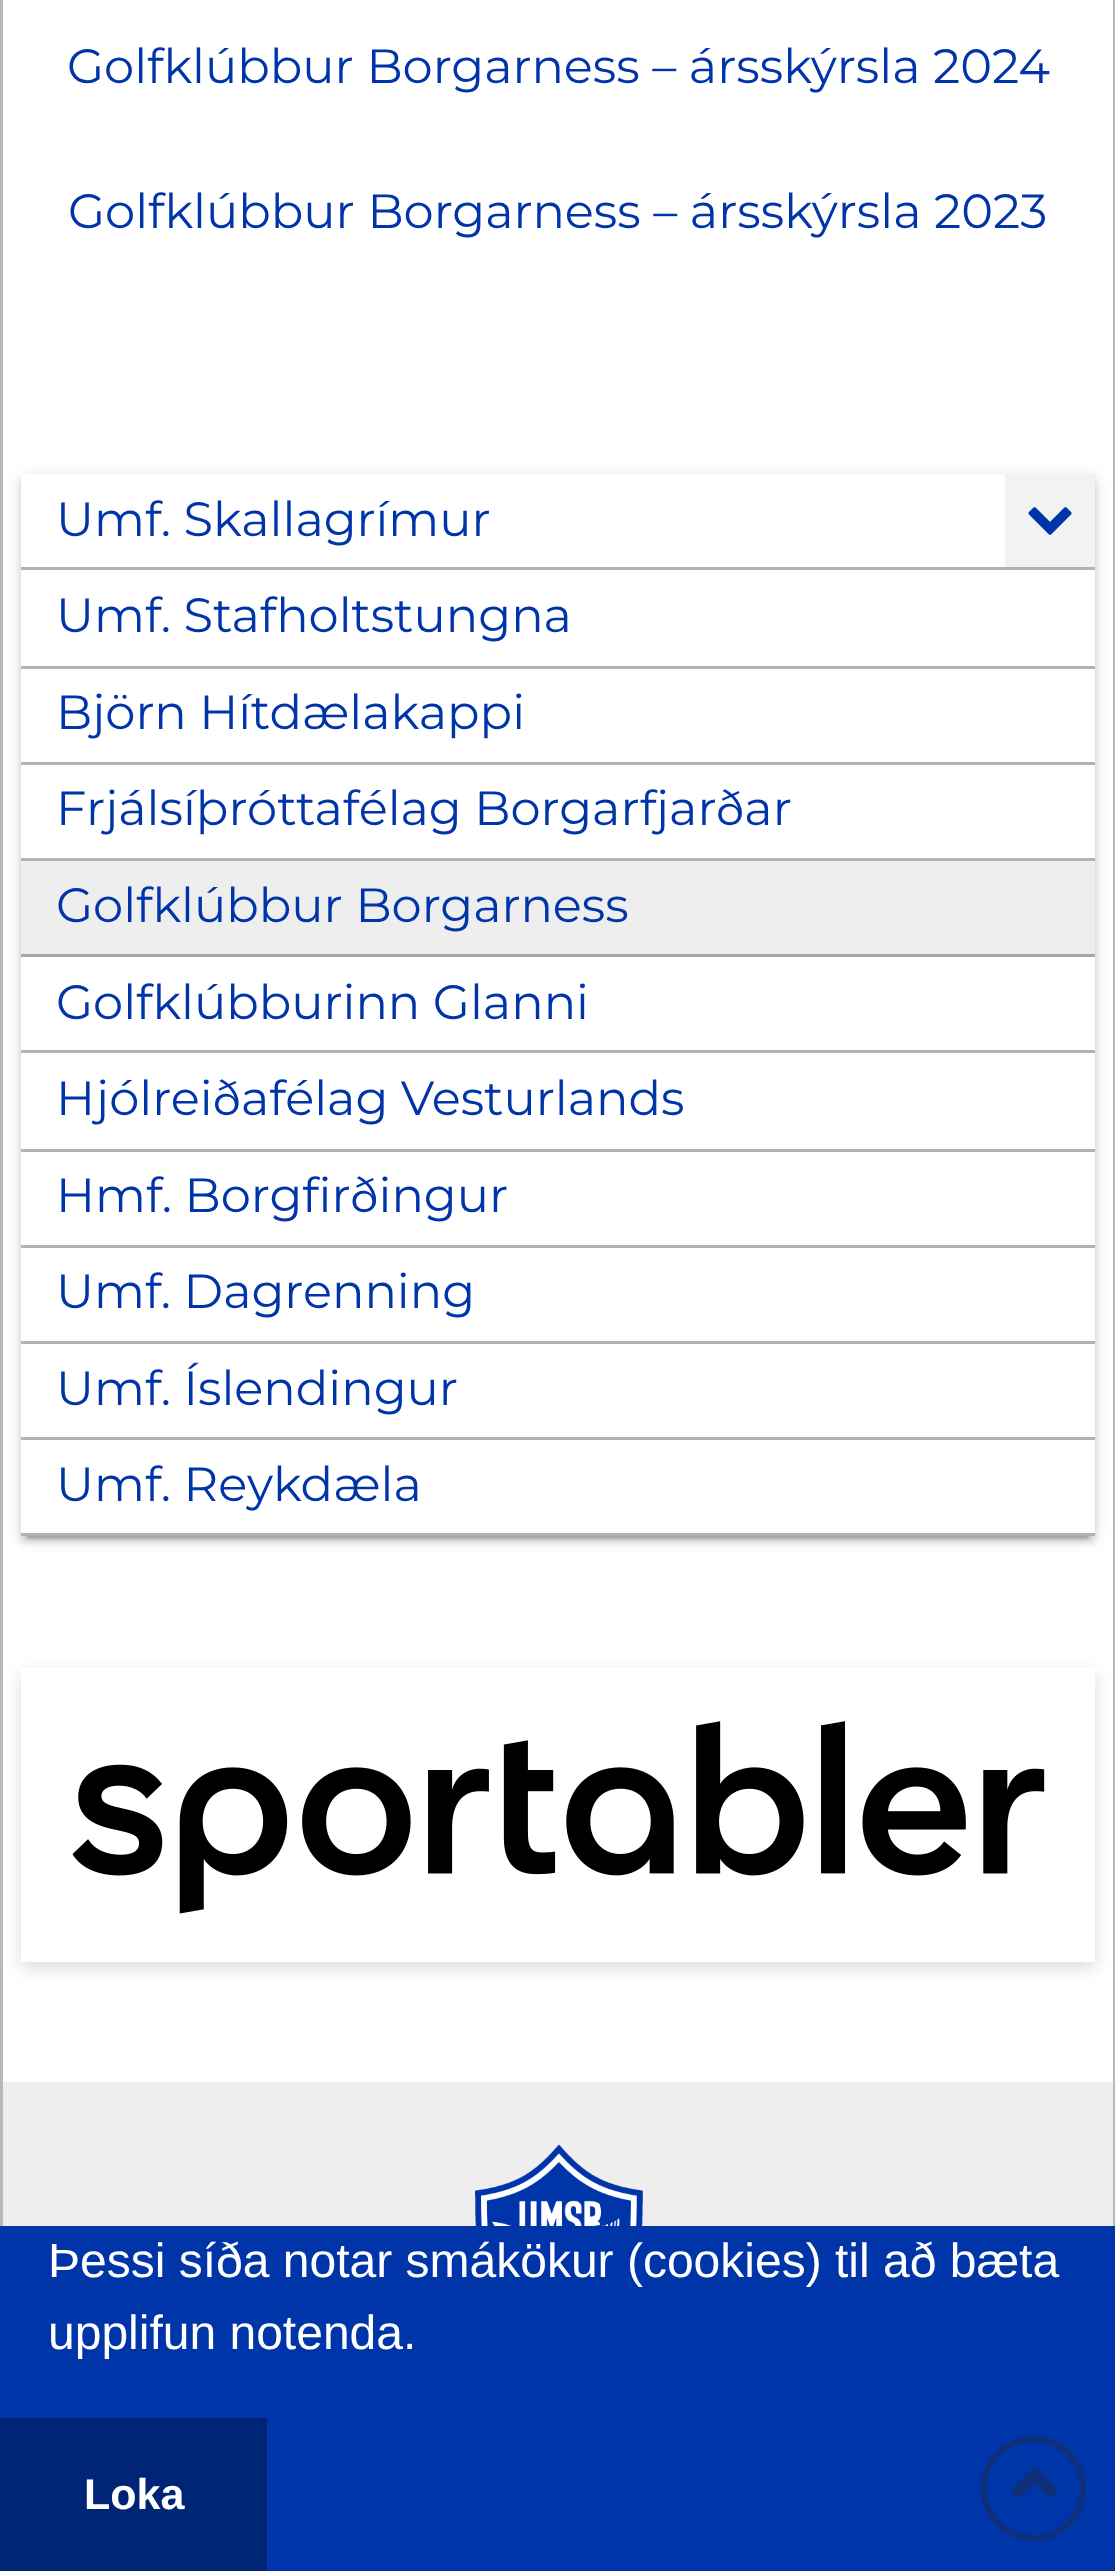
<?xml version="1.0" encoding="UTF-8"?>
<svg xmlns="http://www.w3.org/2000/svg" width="1115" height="2571">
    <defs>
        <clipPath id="clip1"><path d="M 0 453 H 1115 V 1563 H 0 Z M 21 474 H 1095 V 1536 H 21 Z" clip-rule="evenodd"/></clipPath>
        <filter id="blur1" x="-50%" y="-200%" width="200%" height="500%"><feGaussianBlur stdDeviation="7.5"/></filter>
        <clipPath id="clip2"><rect x="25" y="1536" width="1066" height="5"/></clipPath>
        <filter id="blur2" x="-50%" y="-200%" width="200%" height="500%"><feGaussianBlur stdDeviation="1.5"/></filter>
        <clipPath id="clip3"><path d="M 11 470 H 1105 V 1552 H 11 Z M 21 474 H 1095 V 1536 H 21 Z" clip-rule="evenodd"/></clipPath>
        <filter id="blur3" x="-50%" y="-200%" width="200%" height="500%"><feGaussianBlur stdDeviation="3"/></filter>
        <clipPath id="clip4"><path d="M 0 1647 H 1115 V 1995 H 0 Z M 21 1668 H 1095 V 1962 H 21 Z" clip-rule="evenodd"/></clipPath>
        <filter id="blur4" x="-50%" y="-200%" width="200%" height="500%"><feGaussianBlur stdDeviation="8.5"/></filter>
    </defs>
    <rect width="100%" height="100%" fill="#FFFFFF"/>
    <rect x="1113" y="0" width="2" height="2226" fill="#B9B9B9"/>
    <rect x="0" y="0" width="3" height="2226" fill="#B9B9B9"/>
    <text x="67" y="83" font-family="Montserrat" font-size="48" fill="#0035A9">Golfklúbbur Borgarness – ársskýrsla 2024</text>
    <text x="68" y="228" font-family="Montserrat" font-size="48" fill="#0035A9">Golfklúbbur Borgarness – ársskýrsla 2023</text>
    <g clip-path="url(#clip1)">
        <rect x="21" y="477" width="1074" height="1062" fill="#000000" fill-opacity="0.12" filter="url(#blur1)"/>
    </g>
    <g clip-path="url(#clip2)">
        <rect x="27" y="489" width="1062" height="1050" fill="#000000" fill-opacity="0.2" filter="url(#blur2)"/>
    </g>
    <g clip-path="url(#clip3)">
        <rect x="21" y="480" width="1074" height="1062" fill="#000000" fill-opacity="0.14" filter="url(#blur3)"/>
    </g>
    <rect x="21" y="567" width="1074" height="3" fill="#B3B3B3"/>
    <text x="56" y="536" font-family="Montserrat" font-size="48" fill="#0035A9">Umf. Skallagrímur</text>
    <rect x="1005" y="474" width="90" height="93" fill="#F2F2F2"/>
    <image x="1028" y="507" width="44" height="28" href="img_01.png"/>
    <rect x="21" y="666" width="1074" height="3" fill="#B3B3B3"/>
    <text x="56" y="632" font-family="Montserrat" font-size="48" fill="#0035A9">Umf. Stafholtstungna</text>
    <rect x="21" y="762" width="1074" height="3" fill="#B3B3B3"/>
    <text x="56" y="729" font-family="Montserrat" font-size="48" fill="#0035A9">Björn Hítdælakappi</text>
    <rect x="21" y="858" width="1074" height="3" fill="#B3B3B3"/>
    <text x="56" y="825" font-family="Montserrat" font-size="48" fill="#0035A9">Frjálsíþróttafélag Borgarfjarðar</text>
    <rect x="21" y="861" width="1074" height="93" fill="#EEEEEE"/>
    <rect x="21" y="954" width="1074" height="3" fill="#A7A7A7"/>
    <text x="56" y="922" font-family="Montserrat" font-size="48" fill="#0035A9">Golfklúbbur Borgarness</text>
    <rect x="21" y="1050" width="1074" height="3" fill="#B3B3B3"/>
    <text x="56" y="1019" font-family="Montserrat" font-size="48" fill="#0035A9">Golfklúbburinn Glanni</text>
    <rect x="21" y="1149" width="1074" height="3" fill="#B3B3B3"/>
    <text x="56" y="1115" font-family="Montserrat" font-size="48" fill="#0035A9">Hjólreiðafélag Vesturlands</text>
    <rect x="21" y="1245" width="1074" height="3" fill="#B3B3B3"/>
    <text x="56" y="1212" font-family="Montserrat" font-size="48" fill="#0035A9">Hmf. Borgfirðingur</text>
    <rect x="21" y="1341" width="1074" height="3" fill="#B3B3B3"/>
    <text x="56" y="1308" font-family="Montserrat" font-size="48" fill="#0035A9">Umf. Dagrenning</text>
    <rect x="21" y="1437" width="1074" height="3" fill="#B3B3B3"/>
    <text x="56" y="1405" font-family="Montserrat" font-size="48" fill="#0035A9">Umf. Íslendingur</text>
    <rect x="21" y="1533" width="1074" height="3" fill="#B3B3B3"/>
    <text x="56" y="1501" font-family="Montserrat" font-size="48" fill="#0035A9">Umf. Reykdæla</text>
    <g clip-path="url(#clip4)">
        <rect x="21" y="1674" width="1074" height="294" fill="#000000" fill-opacity="0.14" filter="url(#blur4)"/>
    </g>
    <image x="72" y="1721" width="973" height="193" href="img_02.png"/>
    <rect x="3" y="2082" width="1110" height="144" fill="#EEEEEE"/>
    <image x="475" y="2144" width="168" height="82" href="img_03.png"/>
    <rect x="0" y="2226" width="1115" height="345" fill="#0035A9"/>
    <circle cx="1033.5" cy="2488.5" r="49.5" fill="none" stroke="#0F3078" stroke-width="6"/>
    <path d="M 1037 2469 L 1050 2482 C 1057 2488 1061 2490 1055 2496 C 1050 2500 1048 2496 1044 2492 L 1035 2483 L 1025 2492 C 1023 2494 1019 2500 1016 2497 C 1007 2490 1012 2489 1019 2482 L 1029 2472 C 1031 2470 1034 2466 1037 2469 Z" fill="#0F3078"/>
    <text font-family="Liberation Sans" font-size="48" fill="#FFFFFF">
        <tspan x="48" y="2277">Þessi síða notar smákökur (cookies) til að bæta</tspan>
        <tspan x="48" y="2349">upplifun notenda.</tspan>
    </text>
    <rect x="0" y="2418" width="267" height="153" fill="#002576"/>
    <text x="84" y="2509" font-family="Liberation Sans" font-size="43" font-weight="700" fill="#FFFFFF">Loka</text>
</svg>
